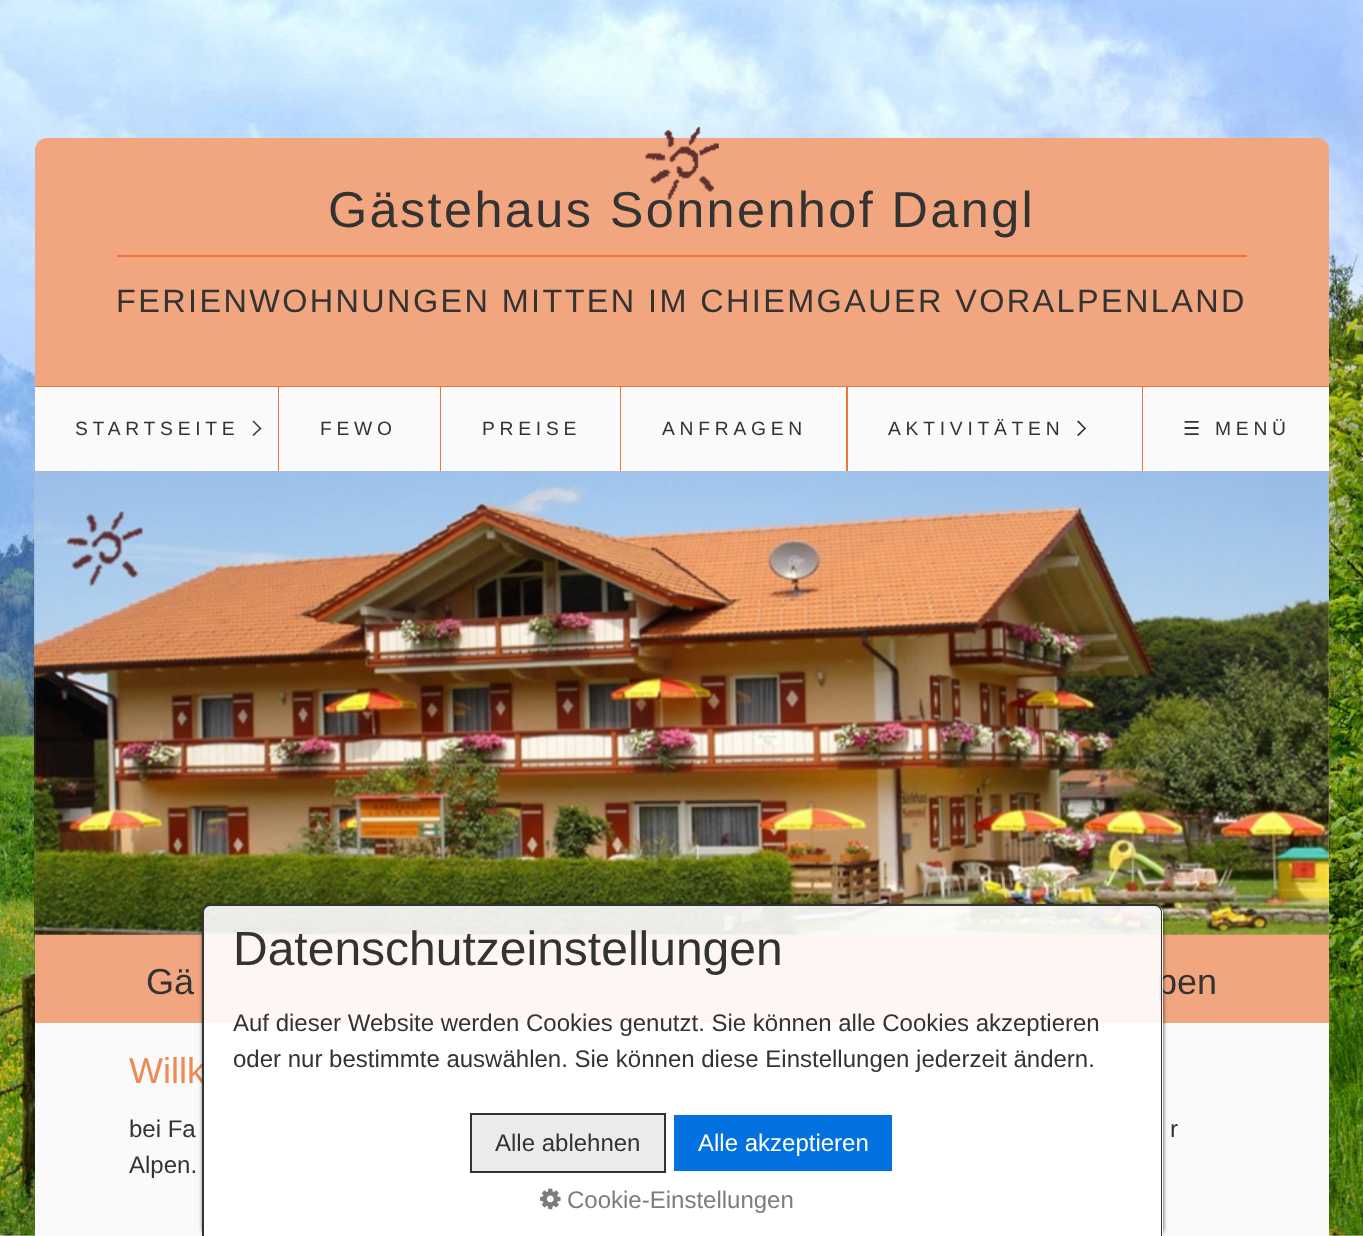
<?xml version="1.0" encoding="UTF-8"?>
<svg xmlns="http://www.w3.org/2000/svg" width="1363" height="1236">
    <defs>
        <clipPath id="clip1"><path d="M 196 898 H 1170 V 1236 H 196 Z M 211 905 H 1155 C 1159.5 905 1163 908.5 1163 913 V 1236 H 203 V 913 C 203 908.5 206.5 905 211 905 Z" clip-rule="evenodd"/></clipPath>
        <filter id="blur1" x="-50%" y="-200%" width="200%" height="500%"><feGaussianBlur stdDeviation="2"/></filter>
    </defs>
    <rect width="100%" height="100%" fill="#FFFFFF"/>
    <image x="0" y="0" width="1363" height="1236" href="img_01.png"/>
    <path d="M 47 138 H 1317 C 1323.5 138 1329 143.5 1329 150 V 471 H 35 V 150 C 35 143.5 40.5 138 47 138 Z" fill="#F1A67F"/>
    <text x="328" y="227" font-family="Liberation Sans" font-size="50.4" letter-spacing="2.4" fill="#333333">Gästehaus Sonnenhof Dangl</text>
    <image x="645" y="127" width="74" height="73" href="img_02.png"/>
    <rect x="117" y="255" width="1130" height="2" fill="#E9763A"/>
    <text x="116" y="312" font-family="Liberation Sans" font-size="32.4" letter-spacing="2.4" fill="#333333">FERIENWOHNUNGEN MITTEN IM CHIEMGAUER VORALPENLAND</text>
    <rect x="35" y="386" width="1294" height="1" fill="#E9763A"/>
    <rect x="35" y="387" width="1107" height="84" fill="#FAFAFA"/>
    <text x="75" y="435" font-family="Liberation Sans" font-size="19.25" letter-spacing="4.75" fill="#333333">STARTSEITE</text>
    <path d="M 253.5 420.5 L 261.5 428.5 L 260.5 429.5 L 252.5 421.5 Z" fill="#333333"/>
    <path d="M 260.5 427.5 L 261.5 428.5 L 253.5 436 L 252.5 435 Z" fill="#333333"/>
    <rect x="278" y="387" width="1" height="84" fill="#E9763A"/>
    <text x="320" y="435" font-family="Liberation Sans" font-size="19.25" letter-spacing="4.75" fill="#333333">FEWO</text>
    <rect x="440" y="387" width="1" height="84" fill="#E9763A"/>
    <text x="482" y="435" font-family="Liberation Sans" font-size="19.25" letter-spacing="4.75" fill="#333333">PREISE</text>
    <rect x="620" y="387" width="1" height="84" fill="#E9763A"/>
    <text x="662" y="435" font-family="Liberation Sans" font-size="19.25" letter-spacing="4.75" fill="#333333">ANFRAGEN</text>
    <rect x="846" y="387" width="2" height="84" fill="#E9763A"/>
    <text x="888" y="435" font-family="Liberation Sans" font-size="19.25" letter-spacing="4.75" fill="#333333">AKTIVITÄTEN</text>
    <path d="M 1078.5 420.5 L 1086 428.5 L 1085 429.5 L 1077 421.5 Z" fill="#333333"/>
    <path d="M 1085 427.5 L 1086 428.5 L 1078.5 436 L 1077 435 Z" fill="#333333"/>
    <rect x="1142" y="387" width="1" height="84" fill="#E9763A"/>
    <rect x="1143" y="387" width="186" height="84" fill="#FAFAFA"/>
    <text x="1183" y="435" font-family="DejaVu Sans" font-size="19.25" letter-spacing="4.75" fill="#333333">☰</text>
    <text x="1215" y="435" font-family="Liberation Sans" font-size="19.25" letter-spacing="4.75" fill="#333333">MENÜ</text>
    <rect x="35" y="471" width="1294" height="552" fill="#F1A67F"/>
    <image x="34" y="471" width="1295" height="464" href="img_03.png"/>
    <text x="146" y="994" font-family="Liberation Sans" font-size="36" fill="#333333">Gä</text>
    <text x="1157" y="994" font-family="Liberation Sans" font-size="36" fill="#333333">pen</text>
    <rect x="35" y="1023" width="1294" height="213" fill="#FAFAFA"/>
    <text x="129" y="1083" font-family="Liberation Sans" font-size="36" fill="#ED8A57">Willk</text>
    <text x="129" y="1137" font-family="Liberation Sans" font-size="24" fill="#333333">bei Fa</text>
    <text x="1170" y="1137" font-family="Liberation Sans" font-size="24" fill="#333333">r</text>
    <text x="129" y="1173" font-family="Liberation Sans" font-size="24" fill="#333333">Alpen.</text>
    <g clip-path="url(#clip1)">
        <rect x="203" y="905" width="960" height="331" rx="8" fill="#000000" fill-opacity="0.8" filter="url(#blur1)"/>
    </g>
    <path d="M 211 905 H 1155 C 1159.5 905 1163 908.5 1163 913 V 1236 H 203 V 913 C 203 908.5 206.5 905 211 905 Z" fill="#FFFFFF" fill-opacity="0.9"/>
    <path d="M 210 904 H 1155 C 1159 904 1162 908 1162 912 V 1236 H 202 V 912 C 202 908 206 904 210 904 Z M 210 906 H 1155 C 1158 906 1161 909 1161 912 V 1236 H 204 V 912 C 204 909 207 906 210 906 Z" fill="#333333" fill-rule="evenodd"/>
    <text x="233" y="965" font-family="Liberation Sans" font-size="48" fill="#333333">Datenschutzeinstellungen</text>
    <text font-family="Liberation Sans" font-size="24" fill="#333333">
        <tspan x="233" y="1031">Auf dieser Website werden Cookies genutzt. Sie können alle Cookies akzeptieren</tspan>
        <tspan x="233" y="1067">oder nur bestimmte auswählen. Sie können diese Einstellungen jederzeit ändern.</tspan>
    </text>
    <rect x="471" y="1114" width="194" height="58" fill="#EBEBEB" stroke="#333333" stroke-width="2"/>
    <text x="495" y="1151" font-family="Liberation Sans" font-size="24" fill="#333333">Alle ablehnen</text>
    <rect x="674" y="1115" width="218" height="56" fill="#0371DF"/>
    <text x="698" y="1151" font-family="Liberation Sans" font-size="24" fill="#FFFFFF">Alle akzeptieren</text>
    <image x="540" y="1188" width="21" height="22" href="img_04.png"/>
    <text x="567" y="1208" font-family="Liberation Sans" font-size="24" fill="#7C7C7C">Cookie-Einstellungen</text>
</svg>
